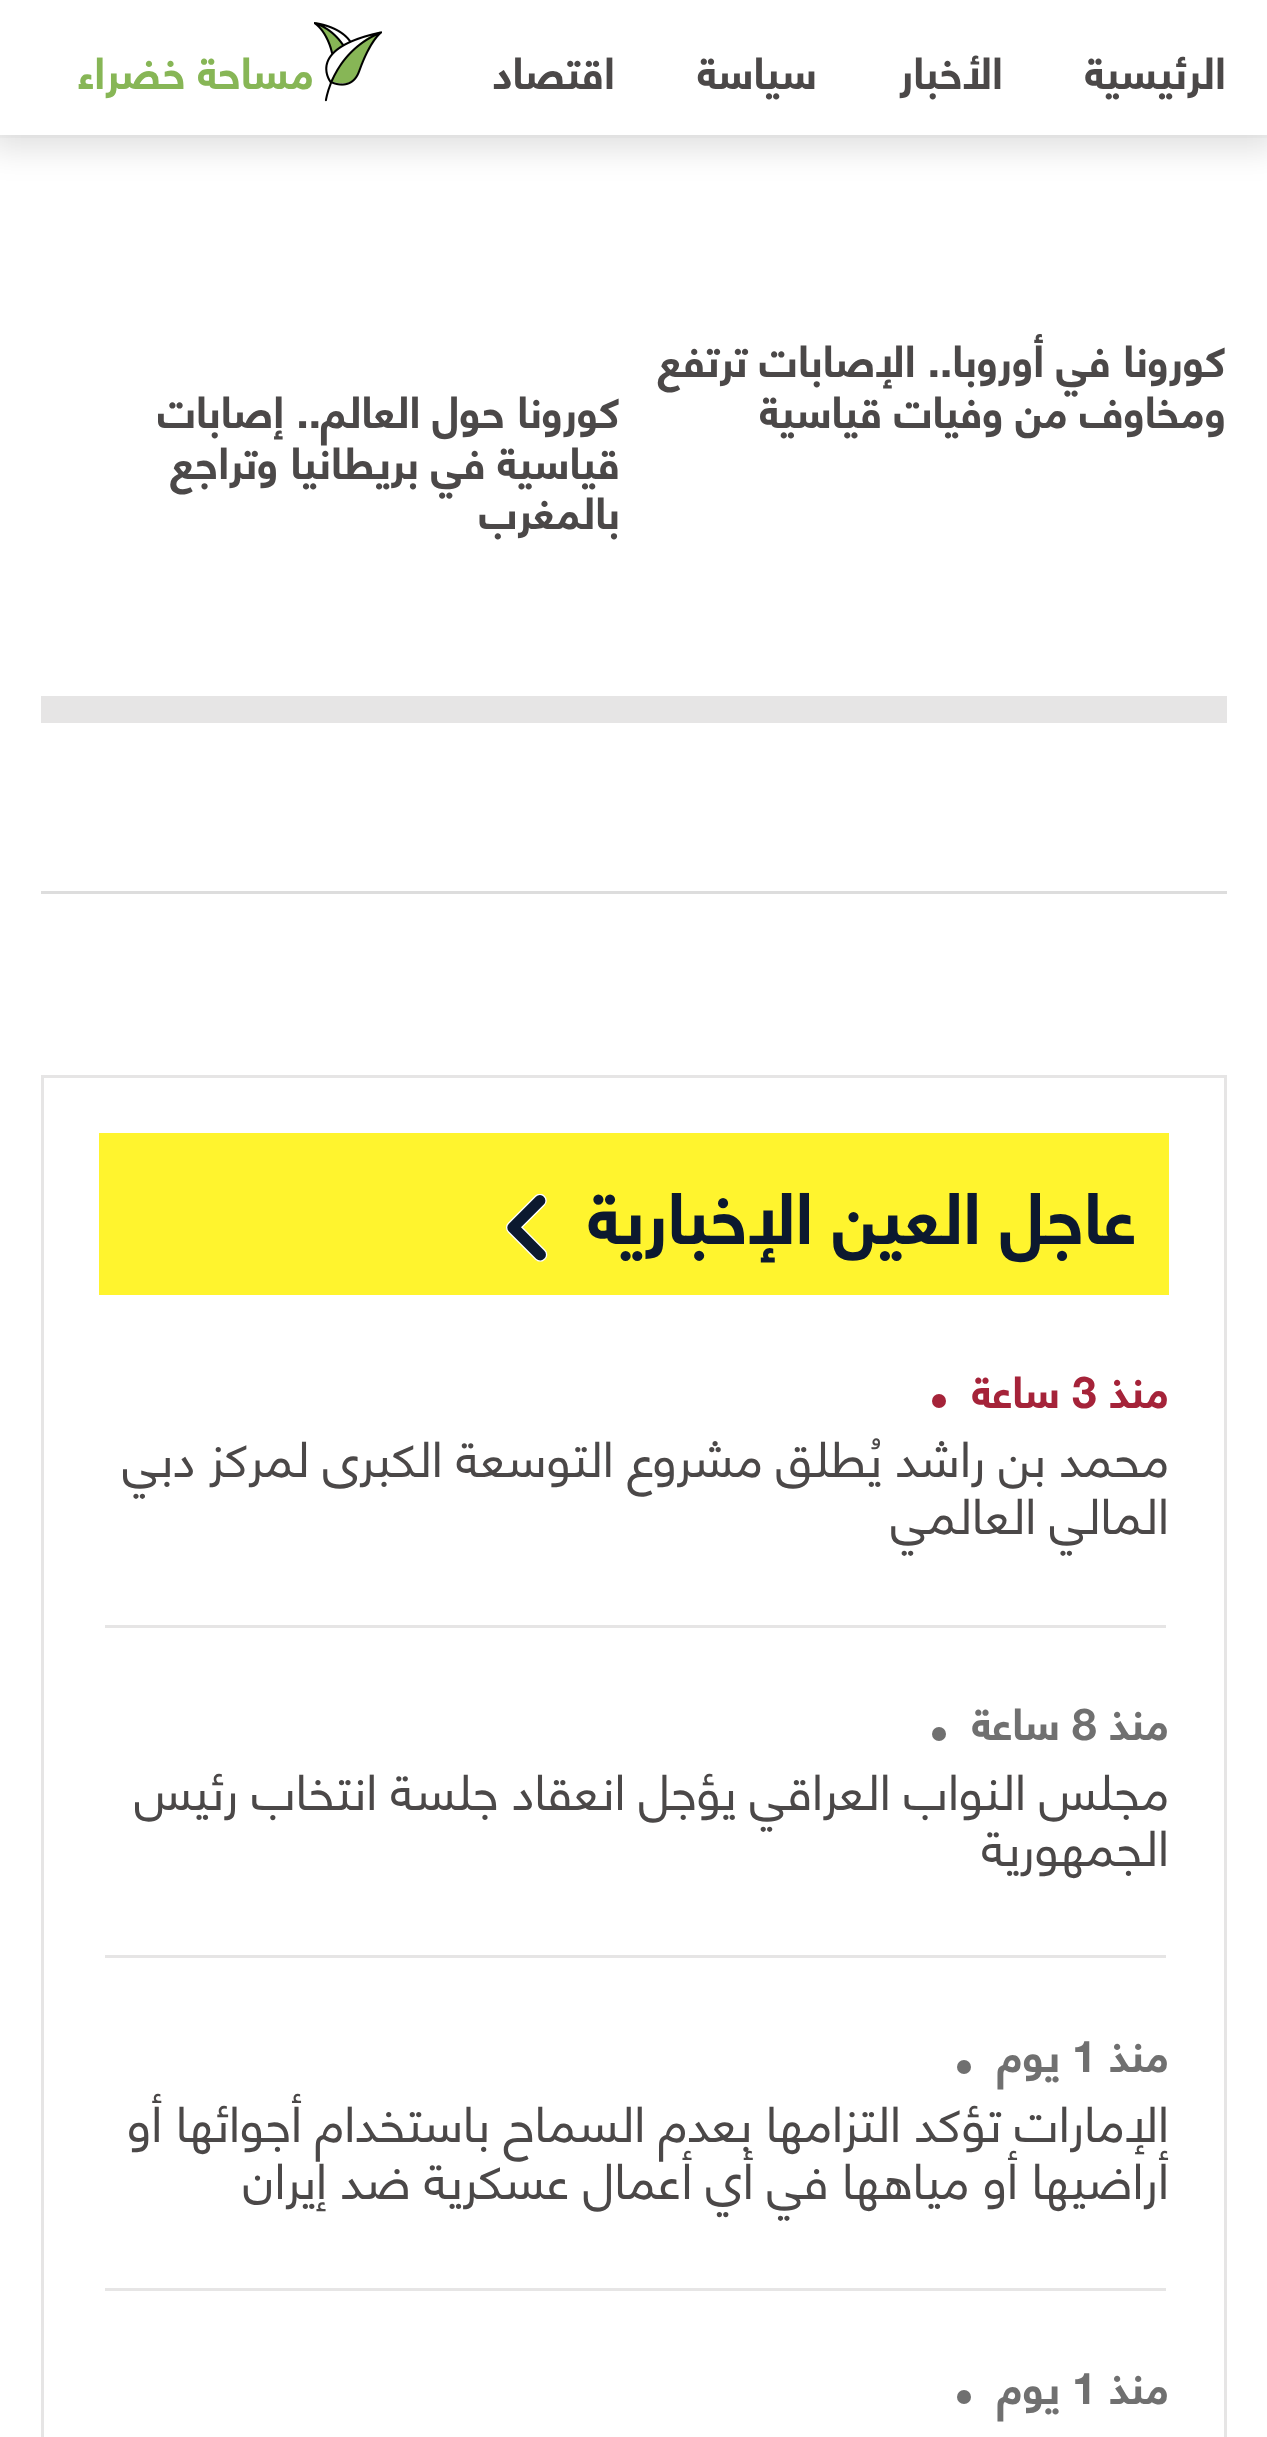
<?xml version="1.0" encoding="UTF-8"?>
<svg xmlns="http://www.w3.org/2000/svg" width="1267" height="2437">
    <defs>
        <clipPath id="clip1"><path d="M 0 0 H 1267 V 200 H 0 Z M 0 -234 H 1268 V 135 H 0 Z" clip-rule="evenodd"/></clipPath>
        <filter id="blur1" x="-50%" y="-200%" width="200%" height="500%"><feGaussianBlur stdDeviation="16.5"/></filter>
    </defs>
    <rect width="100%" height="100%" fill="#FFFFFF"/>
    <rect x="0" y="135" width="1267" height="3" fill="#FAFAFA"/>
    <g clip-path="url(#clip1)">
        <rect x="-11" y="-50" width="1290" height="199" fill="#171717" fill-opacity="0.12" filter="url(#blur1)"/>
    </g>
    <text x="1226" y="89" font-family="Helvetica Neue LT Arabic" font-size="44" font-weight="700" direction="rtl" fill="#4B4848">الرئيسية</text>
    <text x="1003" y="89" font-family="Helvetica Neue LT Arabic" font-size="44" font-weight="700" direction="rtl" fill="#4B4848">الأخبار</text>
    <text x="817" y="89" font-family="Helvetica Neue LT Arabic" font-size="44" font-weight="700" direction="rtl" fill="#4B4848">سياسة</text>
    <text x="615" y="89" font-family="Helvetica Neue LT Arabic" font-size="44" font-weight="700" direction="rtl" fill="#4B4848">اقتصاد</text>
    <image x="314" y="22" width="68" height="80" href="img_01.png"/>
    <text x="314" y="89" font-family="Helvetica Neue LT Arabic" font-size="44" font-weight="700" direction="rtl" fill="#87B656">مساحة خضراء</text>
    <text font-family="Helvetica Neue LT Arabic" font-size="44" font-weight="700" direction="rtl" fill="#4B4848">
        <tspan x="1226" y="377">كورونا في أوروبا.. الإصابات ترتفع</tspan>
        <tspan x="1226" y="428">ومخاوف من وفيات قياسية</tspan>
    </text>
    <text font-family="Helvetica Neue LT Arabic" font-size="44" font-weight="700" direction="rtl" fill="#4B4848">
        <tspan x="620" y="428">كورونا حول العالم.. إصابات</tspan>
        <tspan x="620" y="479">قياسية في بريطانيا وتراجع</tspan>
        <tspan x="620" y="529">بالمغرب</tspan>
    </text>
    <rect x="41" y="696" width="1186" height="27" fill="#E6E5E5"/>
    <rect x="41" y="891" width="1186" height="3" fill="#DDDDDD"/>
    <rect x="42.5" y="1076.5" width="1183" height="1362" fill="none" stroke="#E6E5E5" stroke-width="3"/>
    <rect x="99" y="1133" width="1070" height="162" fill="#FFF42E"/>
    <text x="1136" y="1244" font-family="Helvetica Neue LT Arabic" font-size="71.5" font-weight="700" direction="rtl" fill="#0C192F">عاجل العين الإخبارية</text>
    <image x="506" y="1194" width="42" height="68" href="img_02.png"/>
    <rect x="105" y="1625" width="1061" height="3" fill="#E6E5E5"/>
    <text x="1169" y="1408" font-family="Helvetica Neue LT Arabic" font-size="44" font-weight="700" direction="rtl" fill="#A52339">منذ</text>
    <text x="1072" y="1408" font-family="Helvetica Neue LT Arabic" font-size="44" font-weight="700" fill="#A52339">3</text>
    <text x="1060" y="1408" font-family="Helvetica Neue LT Arabic" font-size="44" font-weight="700" direction="rtl" fill="#A52339">ساعة</text>
    <circle cx="939" cy="1401" r="7" fill="#A52339"/>
    <text font-family="Helvetica Neue LT Arabic" font-size="49.5" direction="rtl" fill="#4B4848">
        <tspan x="1169" y="1477">محمد بن راشد يُطلق مشروع التوسعة الكبرى لمركز دبي</tspan>
        <tspan x="1169" y="1534">المالي العالمي</tspan>
    </text>
    <rect x="105" y="1955" width="1061" height="3" fill="#E6E5E5"/>
    <text x="1169" y="1740" font-family="Helvetica Neue LT Arabic" font-size="44" font-weight="700" direction="rtl" fill="#707070">منذ</text>
    <text x="1072" y="1740" font-family="Helvetica Neue LT Arabic" font-size="44" font-weight="700" fill="#707070">8</text>
    <text x="1060" y="1740" font-family="Helvetica Neue LT Arabic" font-size="44" font-weight="700" direction="rtl" fill="#707070">ساعة</text>
    <circle cx="939" cy="1734" r="7" fill="#707070"/>
    <text font-family="Helvetica Neue LT Arabic" font-size="49.5" direction="rtl" fill="#4B4848">
        <tspan x="1169" y="1810">مجلس النواب العراقي يؤجل انعقاد جلسة انتخاب رئيس</tspan>
        <tspan x="1169" y="1866">الجمهورية</tspan>
    </text>
    <rect x="105" y="2288" width="1061" height="3" fill="#E6E5E5"/>
    <text x="1169" y="2072" font-family="Helvetica Neue LT Arabic" font-size="44" font-weight="700" direction="rtl" fill="#707070">منذ</text>
    <text x="1072" y="2072" font-family="Helvetica Neue LT Arabic" font-size="44" font-weight="700" fill="#707070">1</text>
    <text x="1060" y="2072" font-family="Helvetica Neue LT Arabic" font-size="44" font-weight="700" direction="rtl" fill="#707070">يوم</text>
    <circle cx="964" cy="2067" r="7" fill="#707070"/>
    <text font-family="Helvetica Neue LT Arabic" font-size="49.5" direction="rtl" fill="#4B4848">
        <tspan x="1169" y="2142">الإمارات تؤكد التزامها بعدم السماح باستخدام أجوائها أو</tspan>
        <tspan x="1169" y="2199">أراضيها أو مياهها في أي أعمال عسكرية ضد إيران</tspan>
    </text>
    <text x="1169" y="2404" font-family="Helvetica Neue LT Arabic" font-size="44" font-weight="700" direction="rtl" fill="#707070">منذ</text>
    <text x="1072" y="2404" font-family="Helvetica Neue LT Arabic" font-size="44" font-weight="700" fill="#707070">1</text>
    <text x="1060" y="2404" font-family="Helvetica Neue LT Arabic" font-size="44" font-weight="700" direction="rtl" fill="#707070">يوم</text>
    <circle cx="964" cy="2397" r="7" fill="#707070"/>
</svg>
